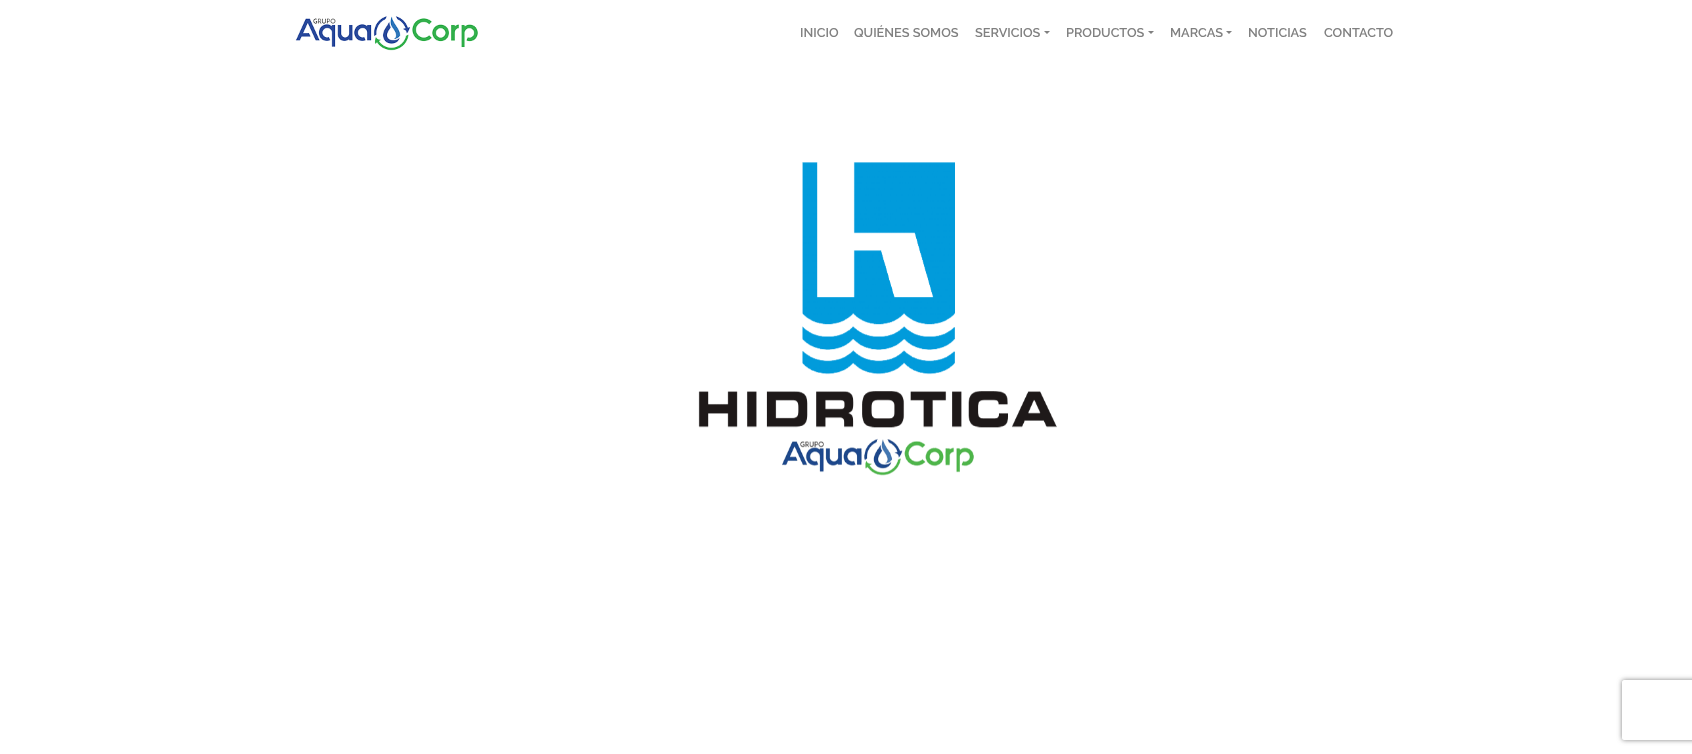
<?xml version="1.0" encoding="UTF-8"?>
<svg xmlns="http://www.w3.org/2000/svg" width="1692" height="754">
    <defs>
        <clipPath id="clip1"><path d="M 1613 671 H 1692 V 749 H 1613 Z M 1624 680 H 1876 C 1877 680 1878 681 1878 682 V 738 C 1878 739 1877 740 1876 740 H 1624 C 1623 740 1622 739 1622 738 V 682 C 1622 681 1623 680 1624 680 Z" clip-rule="evenodd"/></clipPath>
        <filter id="blur1" x="-50%" y="-200%" width="200%" height="500%"><feGaussianBlur stdDeviation="2.5"/></filter>
    </defs>
    <rect width="100%" height="100%" fill="#FFFFFF"/>
    <image x="295" y="16" width="183" height="35" href="img_01.png"/>
    <text x="800" y="37" font-family="Raleway" font-size="12.75" font-weight="600" fill="#808080">INICIO</text>
    <text x="854" y="37" font-family="Raleway" font-size="12.75" font-weight="600" fill="#808080">QUIÉNES SOMOS</text>
    <text x="975" y="37" font-family="Raleway" font-size="12.75" font-weight="600" fill="#808080">SERVICIOS</text>
    <path d="M 1044 31 H 1050 L 1047 34 Z" fill="#808080"/>
    <text x="1066" y="37" font-family="Raleway" font-size="12.75" font-weight="600" fill="#808080">PRODUCTOS</text>
    <path d="M 1148 31 H 1154 L 1151 34 Z" fill="#808080"/>
    <text x="1170" y="37" font-family="Raleway" font-size="12.75" font-weight="600" fill="#808080">MARCAS</text>
    <path d="M 1226 31 H 1232 L 1229 34 Z" fill="#808080"/>
    <text x="1248" y="37" font-family="Raleway" font-size="12.75" font-weight="600" fill="#808080">NOTICIAS</text>
    <text x="1324" y="37" font-family="Raleway" font-size="12.75" font-weight="600" fill="#808080">CONTACTO</text>
    <image x="698" y="162" width="359" height="314" href="img_02.png"/>
    <g clip-path="url(#clip1)">
        <rect x="1622" y="680" width="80" height="60" rx="2" fill="#808080" filter="url(#blur1)"/>
    </g>
</svg>
